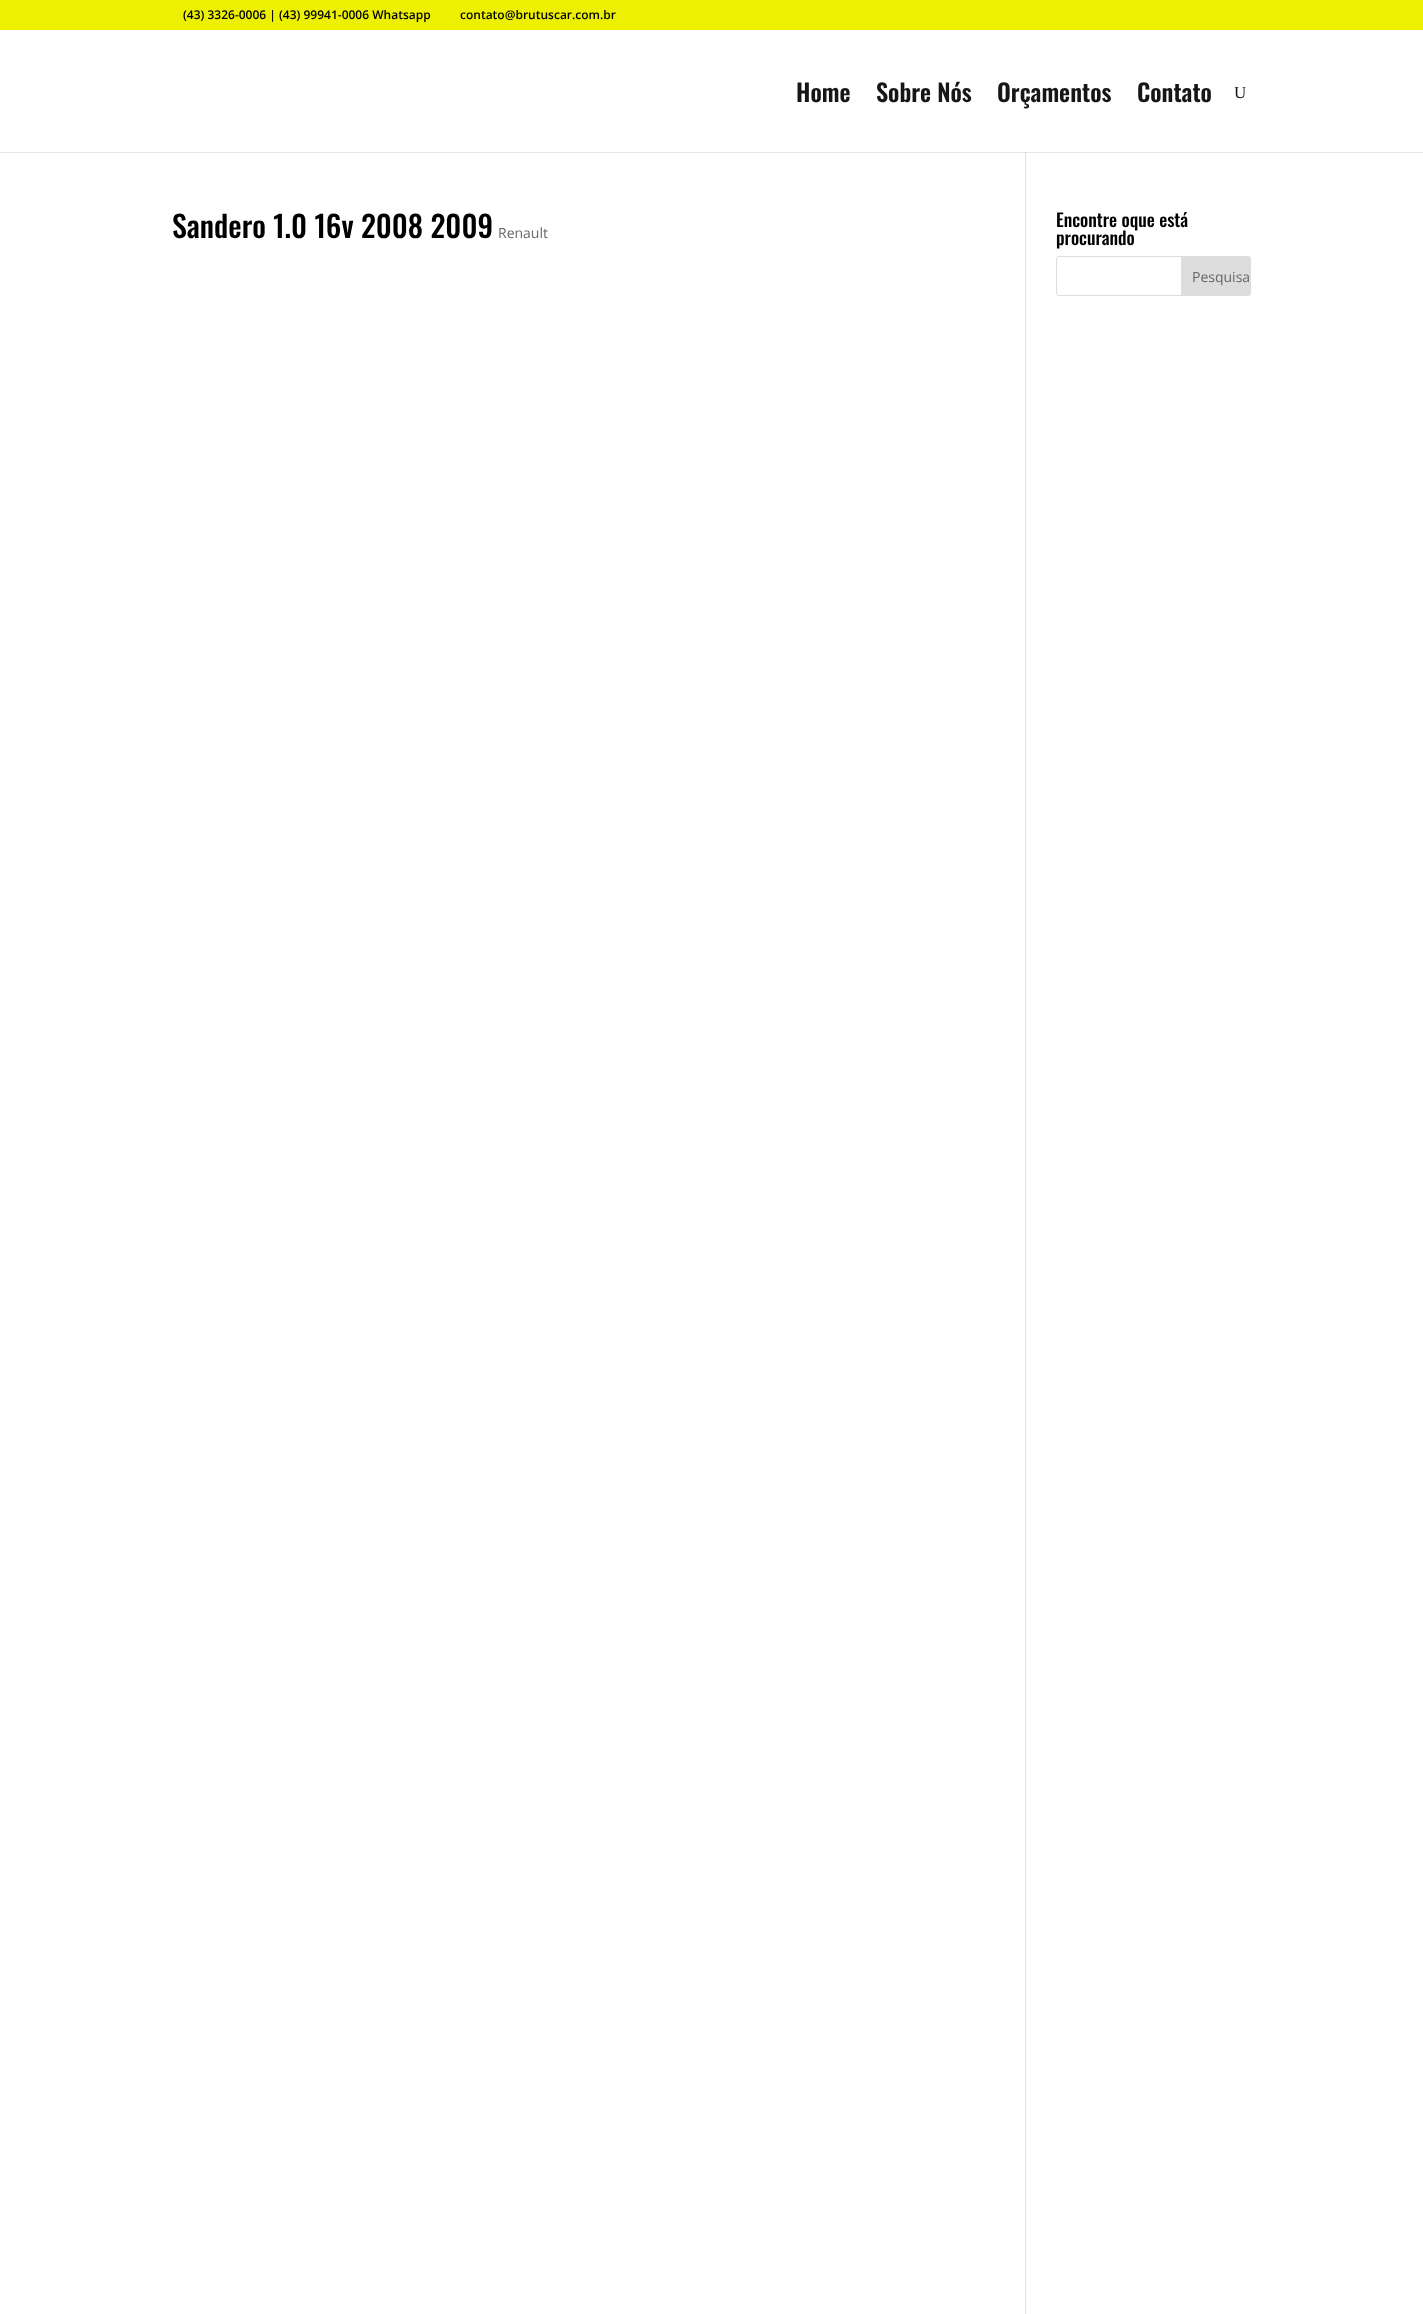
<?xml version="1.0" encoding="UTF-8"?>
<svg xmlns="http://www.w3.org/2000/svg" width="1423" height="2314">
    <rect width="100%" height="100%" fill="#FFFFFF"/>
    <rect x="0" y="0" width="1423" height="30" fill="#EDF000"/>
    <text x="183" y="19" font-family="Open Sans" font-size="12" font-weight="600" fill="#000000">(43) 3326-0006 | (43) 99941-0006 Whatsapp</text>
    <text x="460" y="19" font-family="Open Sans" font-size="12" font-weight="600" fill="#000000">contato@brutuscar.com.br</text>
    <text x="796" y="102" font-family="Oswald" font-size="24" font-weight="600" fill="#161616">Home</text>
    <text x="876" y="102" font-family="Oswald" font-size="24" font-weight="600" fill="#161616">Sobre Nós</text>
    <text x="997" y="102" font-family="Oswald" font-size="24" font-weight="600" fill="#161616">Orçamentos</text>
    <text x="1137" y="102" font-family="Oswald" font-size="24" font-weight="600" fill="#161616">Contato</text>
    <text x="1234" y="98" font-family="Liberation Serif" font-size="17" fill="#161616">U</text>
    <rect x="0" y="152" width="1423" height="1" fill="#E6E6E6"/>
    <rect x="1025" y="152" width="1" height="2162" fill="#E2E2E2"/>
    <rect x="1025" y="152" width="1" height="1" fill="#CBCBCB"/>
    <text x="172" y="238" font-family="Oswald" font-size="30" font-weight="500" fill="#000000">Sandero 1.0 16v 2008 2009</text>
    <text x="498" y="238" font-family="Open Sans" font-size="14" fill="#666666">Renault</text>
    <text font-family="Oswald" font-size="18" font-weight="500" fill="#000000">
        <tspan x="1056" y="227">Encontre oque está</tspan>
        <tspan x="1056" y="245">procurando</tspan>
    </text>
    <rect x="1056.5" y="256.5" width="194" height="39" rx="2.5" fill="none" stroke="#DDDDDD"/>
    <path d="M 1181.5 256.5 H 1248 C 1249.5 256.5 1250.5 257.5 1250.5 259 V 293 C 1250.5 294.5 1249.5 295.5 1248 295.5 H 1181.5 Z" fill="#DDDDDD" stroke="#DDDDDD"/>
    <text x="1192" y="282" font-family="Open Sans" font-size="14" fill="#666666">Pesquisa</text>
</svg>
